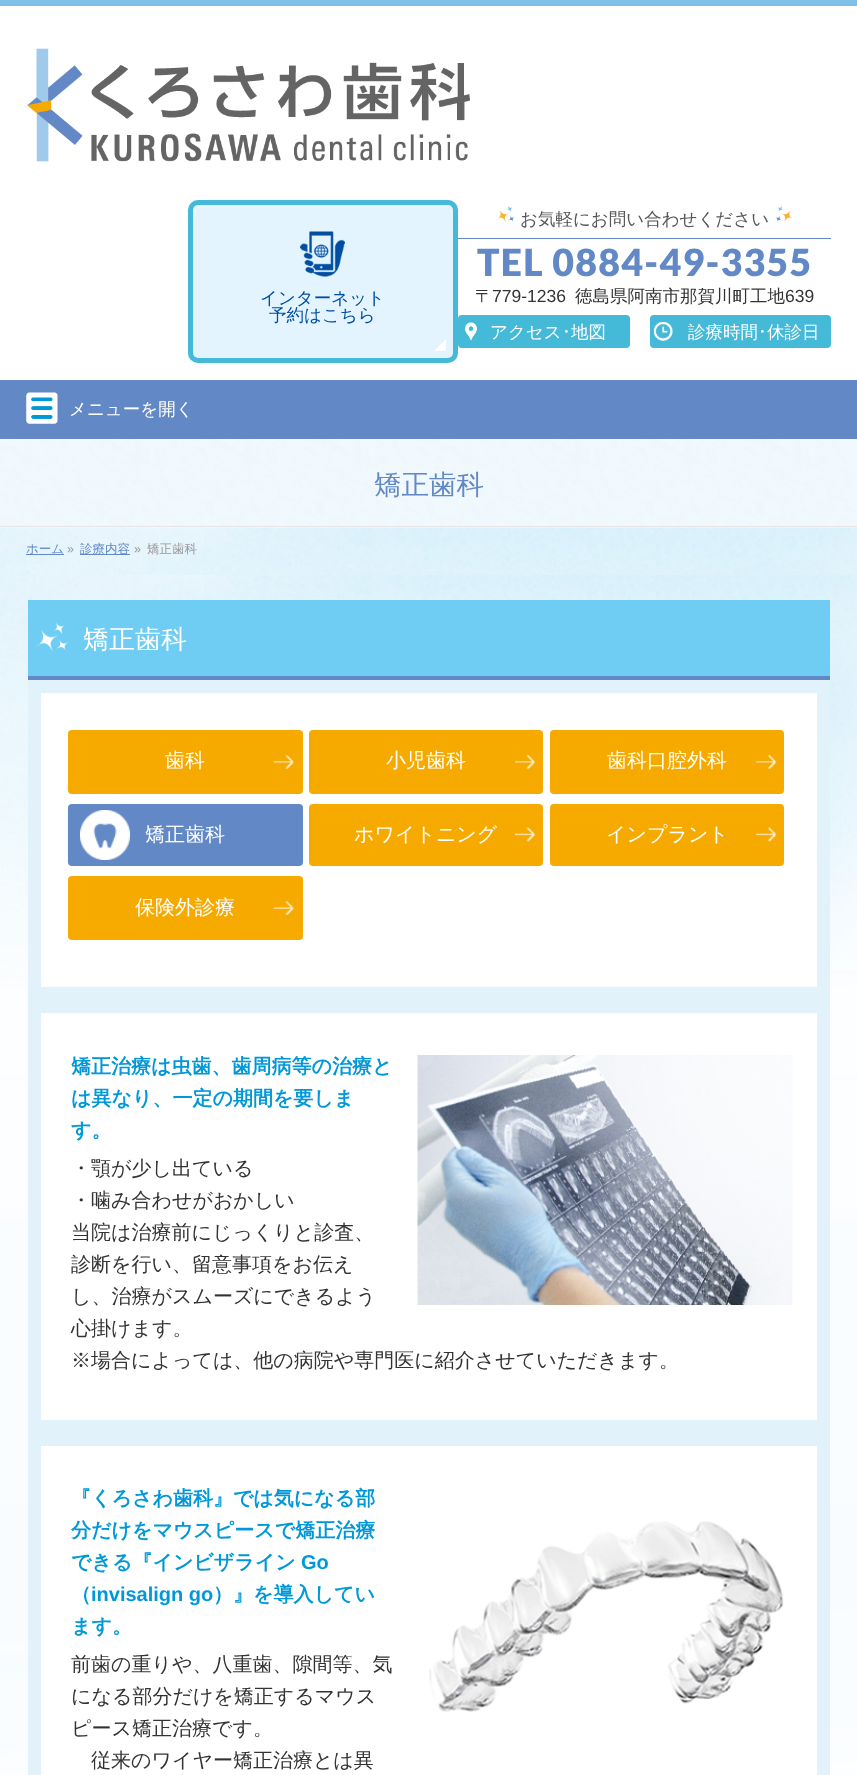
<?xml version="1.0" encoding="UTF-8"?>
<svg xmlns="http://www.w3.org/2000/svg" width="857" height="1775">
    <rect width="100%" height="100%" fill="#FFFFFF"/>
    <rect x="0" y="0" width="857" height="6" fill="#81C0E9"/>
    <image x="27" y="48" width="443" height="114" href="img_01.png"/>
    <rect x="188" y="200" width="270" height="163" rx="10" fill="#E3F4FF"/>
    <image x="300" y="231" width="45" height="46" href="img_02.png"/>
    <rect x="190.5" y="202.5" width="265" height="158" rx="7.5" fill="none" stroke="#44B9D8" stroke-width="5"/>
    <text x="260" y="304" font-family="WenQuanYi Zen Hei" font-size="17.5" font-weight="500" fill="#004EA2">インターネット</text>
    <text x="269" y="321" font-family="WenQuanYi Zen Hei" font-size="17.5" font-weight="500" fill="#004EA2">予約はこちら</text>
    <path d="M 446 339 V 351 H 434 Z" fill="#FFFFFF"/>
    <rect x="458" y="238" width="373" height="1" fill="#6288C5"/>
    <image x="496" y="206" width="19" height="16" href="img_03.png"/>
    <text x="520" y="225" font-family="WenQuanYi Zen Hei" font-size="17.5" font-weight="500" fill="#555555">お気軽にお問い合わせください</text>
    <image x="775" y="205" width="19" height="18" href="img_04.png"/>
    <text x="477" y="276" font-family="Lato" font-size="37.5" font-weight="900" letter-spacing="1.25" fill="#6288C5">TEL 0884-49-3355</text>
    <text x="475" y="302" font-family="WenQuanYi Zen Hei" font-size="17.5" font-weight="500" fill="#333333">〒</text>
    <text x="492" y="302" font-family="Liberation Sans" font-size="17.5" fill="#333333">779-1236</text>
    <text x="575" y="302" font-family="WenQuanYi Zen Hei" font-size="17.5" font-weight="500" fill="#333333">徳島県阿南市那賀川町工地</text>
    <text x="785" y="302" font-family="Liberation Sans" font-size="17.5" fill="#333333">639</text>
    <rect x="458" y="315" width="172" height="33" rx="4" fill="#44B9D8"/>
    <image x="465" y="322" width="12" height="19" href="img_05.png"/>
    <text x="490" y="338" font-family="WenQuanYi Zen Hei" font-size="17.5" font-weight="500" fill="#FFFFFF">アクセス</text>
    <text x="562" y="338" font-family="IPAPGothic" font-size="17.5" fill="#FFFFFF">･</text>
    <text x="571" y="338" font-family="WenQuanYi Zen Hei" font-size="17.5" font-weight="500" fill="#FFFFFF">地図</text>
    <rect x="650" y="315" width="181" height="33" rx="4" fill="#44B9D8"/>
    <image x="653" y="322" width="20" height="19" href="img_06.png"/>
    <text x="688" y="338" font-family="WenQuanYi Zen Hei" font-size="17.5" font-weight="500" fill="#FFFFFF">診療時間</text>
    <text x="758" y="338" font-family="IPAPGothic" font-size="17.5" fill="#FFFFFF">･</text>
    <text x="767" y="338" font-family="WenQuanYi Zen Hei" font-size="17.5" font-weight="500" fill="#FFFFFF">休診日</text>
    <rect x="0" y="380" width="857" height="59" fill="#6288C5"/>
    <image x="26" y="392" width="32" height="32" href="img_07.png"/>
    <text x="69" y="415" font-family="WenQuanYi Zen Hei" font-size="17.5" font-weight="500" fill="#FFFFFF">メニューを開く</text>
    <image x="0" y="439" width="857" height="89" href="img_08.png"/>
    <rect x="0" y="526" width="857" height="1" fill="#E5E5E5"/>
    <text x="374" y="494" font-family="WenQuanYi Zen Hei" font-size="27.5" font-weight="500" fill="#6288C5">矯正歯科</text>
    <image x="0" y="527" width="857" height="48" href="img_09.png"/>
    <rect x="26" y="554" width="38" height="1" fill="#6288C5"/>
    <text x="26" y="553" font-family="WenQuanYi Zen Hei" font-size="12.5" font-weight="500" fill="#6288C5">ホーム</text>
    <text x="67" y="553" font-family="Liberation Sans" font-size="12.5" fill="#999999">»</text>
    <rect x="80" y="554" width="50" height="1" fill="#6288C5"/>
    <text x="80" y="553" font-family="WenQuanYi Zen Hei" font-size="12.5" font-weight="500" fill="#6288C5">診療内容</text>
    <text x="134" y="553" font-family="Liberation Sans" font-size="12.5" fill="#999999">»</text>
    <text x="147" y="553" font-family="WenQuanYi Zen Hei" font-size="12.5" font-weight="500" fill="#999999">矯正歯科</text>
    <image x="0" y="575" width="857" height="1200" href="img_10.png"/>
    <rect x="28" y="600" width="802" height="76" fill="#6FCCF3"/>
    <rect x="28" y="676" width="802" height="4" fill="#6288C5"/>
    <image x="35" y="622" width="34" height="30" href="img_11.png"/>
    <text x="83" y="648" font-family="WenQuanYi Zen Hei" font-size="26" font-weight="500" fill="#FFFFFF">矯正歯科</text>
    <rect x="34.5" y="686.5" width="789" height="307" fill="#FFFFFF" stroke="#E2F2FB" stroke-width="13"/>
    <rect x="68" y="730" width="235" height="64" rx="4" fill="#F6AA00"/>
    <image x="273" y="755" width="21" height="14" href="img_12.png"/>
    <text x="165" y="767" font-family="WenQuanYi Zen Hei" font-size="20" font-weight="500" fill="#FFFFFF">歯科</text>
    <rect x="309" y="730" width="234" height="64" rx="4" fill="#F6AA00"/>
    <image x="515" y="755" width="20" height="14" href="img_13.png"/>
    <text x="386" y="767" font-family="WenQuanYi Zen Hei" font-size="20" font-weight="500" fill="#FFFFFF">小児歯科</text>
    <rect x="550" y="730" width="234" height="64" rx="4" fill="#F6AA00"/>
    <image x="756" y="755" width="21" height="14" href="img_14.png"/>
    <text x="607" y="767" font-family="WenQuanYi Zen Hei" font-size="20" font-weight="500" fill="#FFFFFF">歯科口腔外科</text>
    <rect x="68" y="804" width="235" height="62" rx="4" fill="#6288C5"/>
    <image x="80" y="810" width="50" height="50" href="img_15.png"/>
    <text x="145" y="841" font-family="WenQuanYi Zen Hei" font-size="20" font-weight="500" fill="#FFFFFF">矯正歯科</text>
    <rect x="309" y="804" width="234" height="62" rx="4" fill="#F6AA00"/>
    <image x="515" y="827" width="20" height="15" href="img_16.png"/>
    <text x="354" y="841" font-family="WenQuanYi Zen Hei" font-size="20" font-weight="500" fill="#FFFFFF">ホワイトニング</text>
    <rect x="550" y="804" width="234" height="62" rx="4" fill="#F6AA00"/>
    <image x="756" y="827" width="21" height="15" href="img_17.png"/>
    <text x="606" y="841" font-family="WenQuanYi Zen Hei" font-size="20" font-weight="500" fill="#FFFFFF">インプラント</text>
    <rect x="68" y="876" width="235" height="64" rx="4" fill="#F6AA00"/>
    <image x="273" y="901" width="21" height="14" href="img_18.png"/>
    <text x="135" y="914" font-family="WenQuanYi Zen Hei" font-size="20" font-weight="500" fill="#FFFFFF">保険外診療</text>
    <rect x="34.5" y="1006.5" width="789" height="420" fill="#FFFFFF" stroke="#E2F2FB" stroke-width="13"/>
    <text font-family="WenQuanYi Zen Hei" font-size="20" font-weight="700" fill="#0098D8">
        <tspan x="71" y="1073">矯正治療は虫歯、歯周病等の治療と</tspan>
        <tspan x="71" y="1105">は異なり、一定の期間を要しま</tspan>
        <tspan x="71" y="1137">す。</tspan>
    </text>
    <image x="417" y="1055" width="376" height="250" href="img_19.png"/>
    <text font-family="WenQuanYi Zen Hei" font-size="20" font-weight="500" fill="#333333">
        <tspan x="71" y="1175">・顎が少し出ている</tspan>
        <tspan x="71" y="1207">・噛み合わせがおかしい</tspan>
        <tspan x="71" y="1239">当院は治療前にじっくりと診査、</tspan>
        <tspan x="71" y="1271">診断を行い、留意事項をお伝え</tspan>
        <tspan x="71" y="1303">し、治療がスムーズにできるよう</tspan>
        <tspan x="71" y="1335">心掛けます。</tspan>
        <tspan x="71" y="1367">※場合によっては、他の病院や専門医に紹介させていただきます。</tspan>
    </text>
    <rect x="34.5" y="1439.5" width="789" height="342" fill="#FFFFFF" stroke="#E2F2FB" stroke-width="13"/>
    <text font-family="WenQuanYi Zen Hei" font-size="20" font-weight="700" fill="#0098D8">
        <tspan x="71" y="1505">『くろさわ歯科』では気になる部</tspan>
        <tspan x="71" y="1537">分だけをマウスピースで矯正治療</tspan>
        <tspan x="71" y="1569">できる『インビザライン</tspan>
    </text>
    <text x="301" y="1569" font-family="Liberation Sans" font-size="20" font-weight="700" fill="#0098D8">Go</text>
    <text x="71" y="1601" font-family="WenQuanYi Zen Hei" font-size="20" font-weight="700" fill="#0098D8">（</text>
    <text x="91" y="1601" font-family="Liberation Sans" font-size="20" font-weight="700" fill="#0098D8">invisalign go</text>
    <text x="213" y="1601" font-family="WenQuanYi Zen Hei" font-size="20" font-weight="700" fill="#0098D8">）』を導入してい</text>
    <text x="71" y="1633" font-family="WenQuanYi Zen Hei" font-size="20" font-weight="700" fill="#0098D8">ます。</text>
    <image x="429" y="1521" width="355" height="191" href="img_20.png"/>
    <text font-family="WenQuanYi Zen Hei" font-size="20" font-weight="500" fill="#333333">
        <tspan x="71" y="1671">前歯の重りや、八重歯、隙間等、気</tspan>
        <tspan x="71" y="1703">になる部分だけを矯正するマウス</tspan>
        <tspan x="71" y="1735">ピース矯正治療です。</tspan>
    </text>
    <text x="91" y="1767" font-family="WenQuanYi Zen Hei" font-size="20" font-weight="500" fill="#333333">従来のワイヤー矯正治療とは異</text>
</svg>
